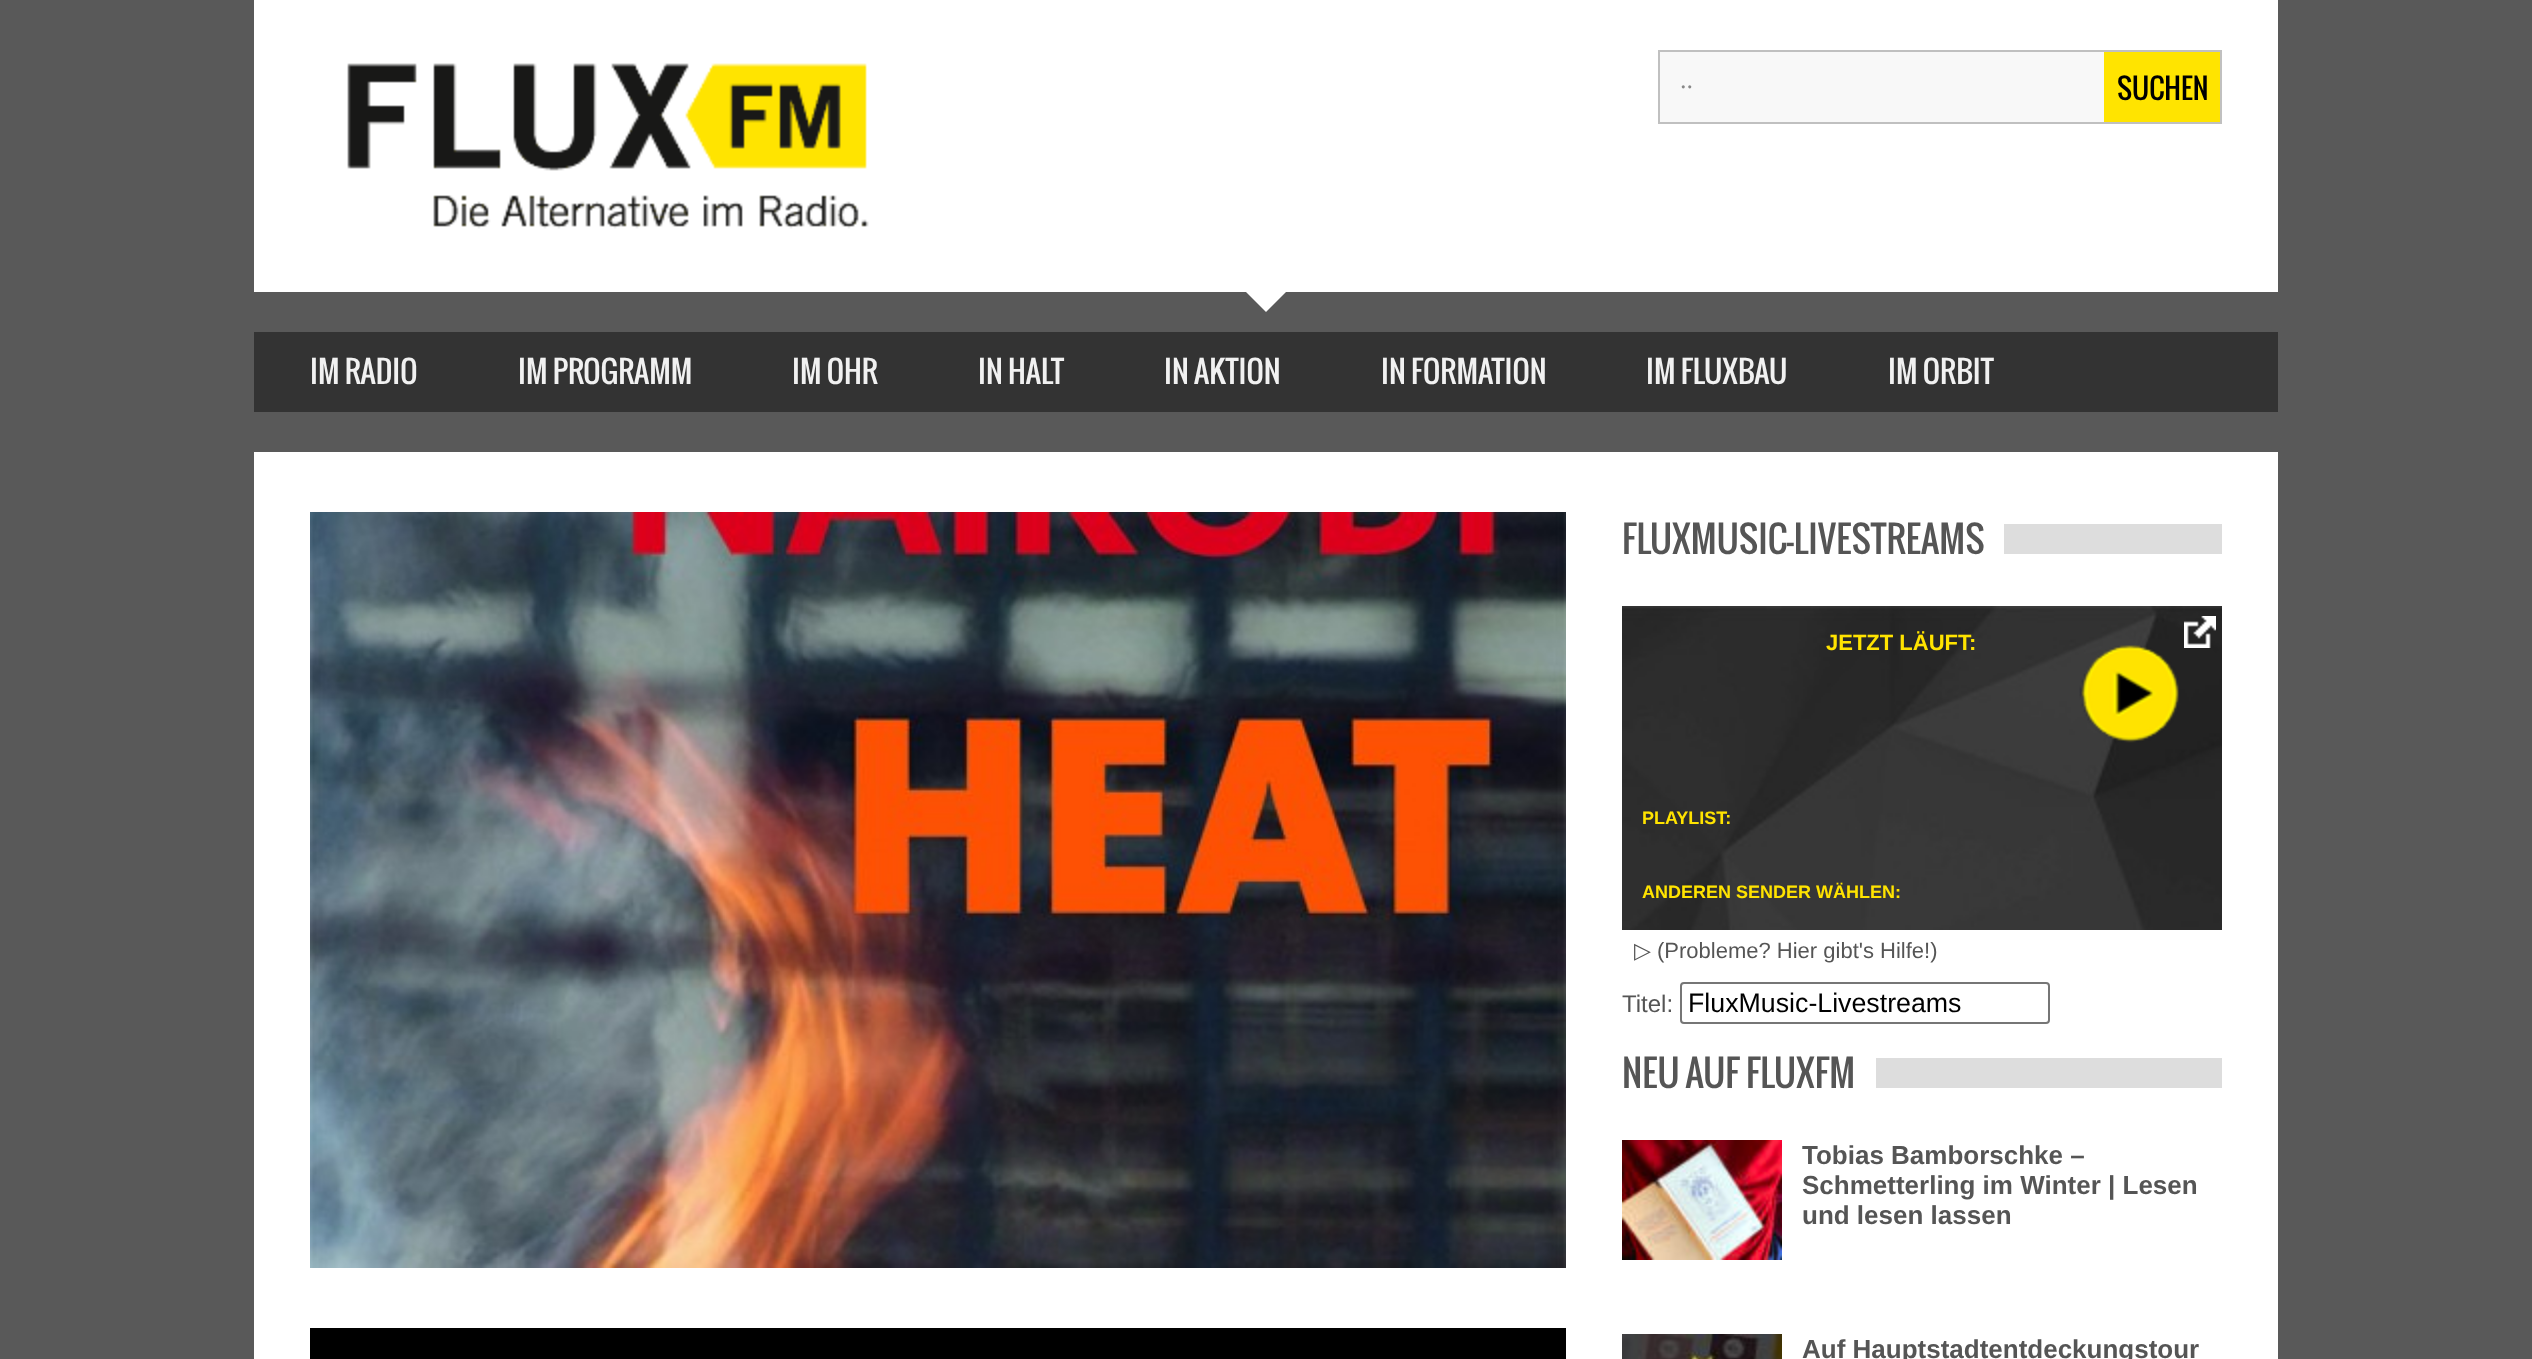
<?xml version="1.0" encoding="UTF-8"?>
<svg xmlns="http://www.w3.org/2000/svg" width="2532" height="1359">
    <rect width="100%" height="100%" fill="#595959"/>
    <rect x="254" y="0" width="2024" height="292" fill="#FFFFFF"/>
    <image x="347" y="63" width="522" height="166" href="img_01.png"/>
    <rect x="1660" y="52" width="444" height="70" fill="#F8F8F8"/>
    <rect x="1659" y="51" width="562" height="72" fill="none" stroke="#C0C0C0" stroke-width="2"/>
    <text x="1680" y="88" font-family="Liberation Serif" font-size="26" fill="#888888">..</text>
    <rect x="2104" y="52" width="116" height="70" fill="#FFE400"/>
    <text x="2117" y="100" font-family="Oswald" font-size="28" fill="#000000">SUCHEN</text>
    <path d="M 1246 292 H 1286 L 1266 312 Z" fill="#FFFFFF"/>
    <rect x="254" y="332" width="2024" height="80" fill="#333333"/>
    <text x="310" y="384" font-family="Oswald" font-size="30" fill="#F1F1F1">IM RADIO</text>
    <text x="518" y="384" font-family="Oswald" font-size="30" fill="#F1F1F1">IM PROGRAMM</text>
    <text x="792" y="384" font-family="Oswald" font-size="30" fill="#F1F1F1">IM OHR</text>
    <text x="978" y="384" font-family="Oswald" font-size="30" fill="#F1F1F1">IN HALT</text>
    <text x="1164" y="384" font-family="Oswald" font-size="30" fill="#F1F1F1">IN AKTION</text>
    <text x="1381" y="384" font-family="Oswald" font-size="30" fill="#F1F1F1">IN FORMATION</text>
    <text x="1646" y="384" font-family="Oswald" font-size="30" fill="#F1F1F1">IM FLUXBAU</text>
    <text x="1888" y="384" font-family="Oswald" font-size="30" fill="#F1F1F1">IM ORBIT</text>
    <rect x="254" y="452" width="2024" height="907" fill="#FFFFFF"/>
    <image x="310" y="512" width="1256" height="756" href="img_02.png"/>
    <rect x="310" y="1328" width="1256" height="31" fill="#000000"/>
    <rect x="2004" y="524" width="218" height="30" fill="#DDDDDD"/>
    <text x="1622" y="554" font-family="Oswald" font-size="36" fill="#555555">FLUXMUSIC-LIVESTREAMS</text>
    <image x="1622" y="606" width="600" height="324" href="img_03.png"/>
    <text x="1826" y="650" font-family="Liberation Sans" font-size="22" font-weight="700" fill="#FFE300">JETZT LÄUFT:</text>
    <image x="2184" y="616" width="32" height="32" href="img_04.png"/>
    <image x="2079" y="645" width="100" height="98" href="img_05.png"/>
    <text x="1642" y="824" font-family="Liberation Sans" font-size="18" font-weight="700" fill="#FFE300">PLAYLIST:</text>
    <text x="1642" y="898" font-family="Liberation Sans" font-size="18" font-weight="700" fill="#FFE300">ANDEREN SENDER WÄHLEN:</text>
    <text x="1634" y="958" font-family="DejaVu Sans" font-size="22" fill="#555555">▷</text>
    <text x="1657" y="958" font-family="Liberation Sans" font-size="22" fill="#555555">(Probleme? Hier gibt's Hilfe!)</text>
    <text x="1622" y="1012" font-family="Liberation Sans" font-size="24" fill="#555555">Titel:</text>
    <rect x="1681" y="983" width="368" height="40" rx="3" fill="none" stroke="#767676" stroke-width="2"/>
    <text x="1688" y="1012" font-family="Liberation Sans" font-size="26.75" fill="#000000">FluxMusic-Livestreams</text>
    <rect x="1876" y="1058" width="346" height="30" fill="#DDDDDD"/>
    <text x="1622" y="1088" font-family="Oswald" font-size="36" fill="#555555">NEU AUF FLUXFM</text>
    <image x="1622" y="1140" width="160" height="120" href="img_06.png"/>
    <text font-family="Liberation Sans" font-size="26" font-weight="700" fill="#555555">
        <tspan x="1802" y="1164">Tobias Bamborschke –</tspan>
        <tspan x="1802" y="1194">Schmetterling im Winter | Lesen</tspan>
        <tspan x="1802" y="1224">und lesen lassen</tspan>
    </text>
    <image x="1622" y="1334" width="160" height="25" href="img_07.png"/>
    <text x="1802" y="1358" font-family="Liberation Sans" font-size="26" font-weight="700" fill="#555555">Auf Hauptstadtentdeckungstour</text>
</svg>
